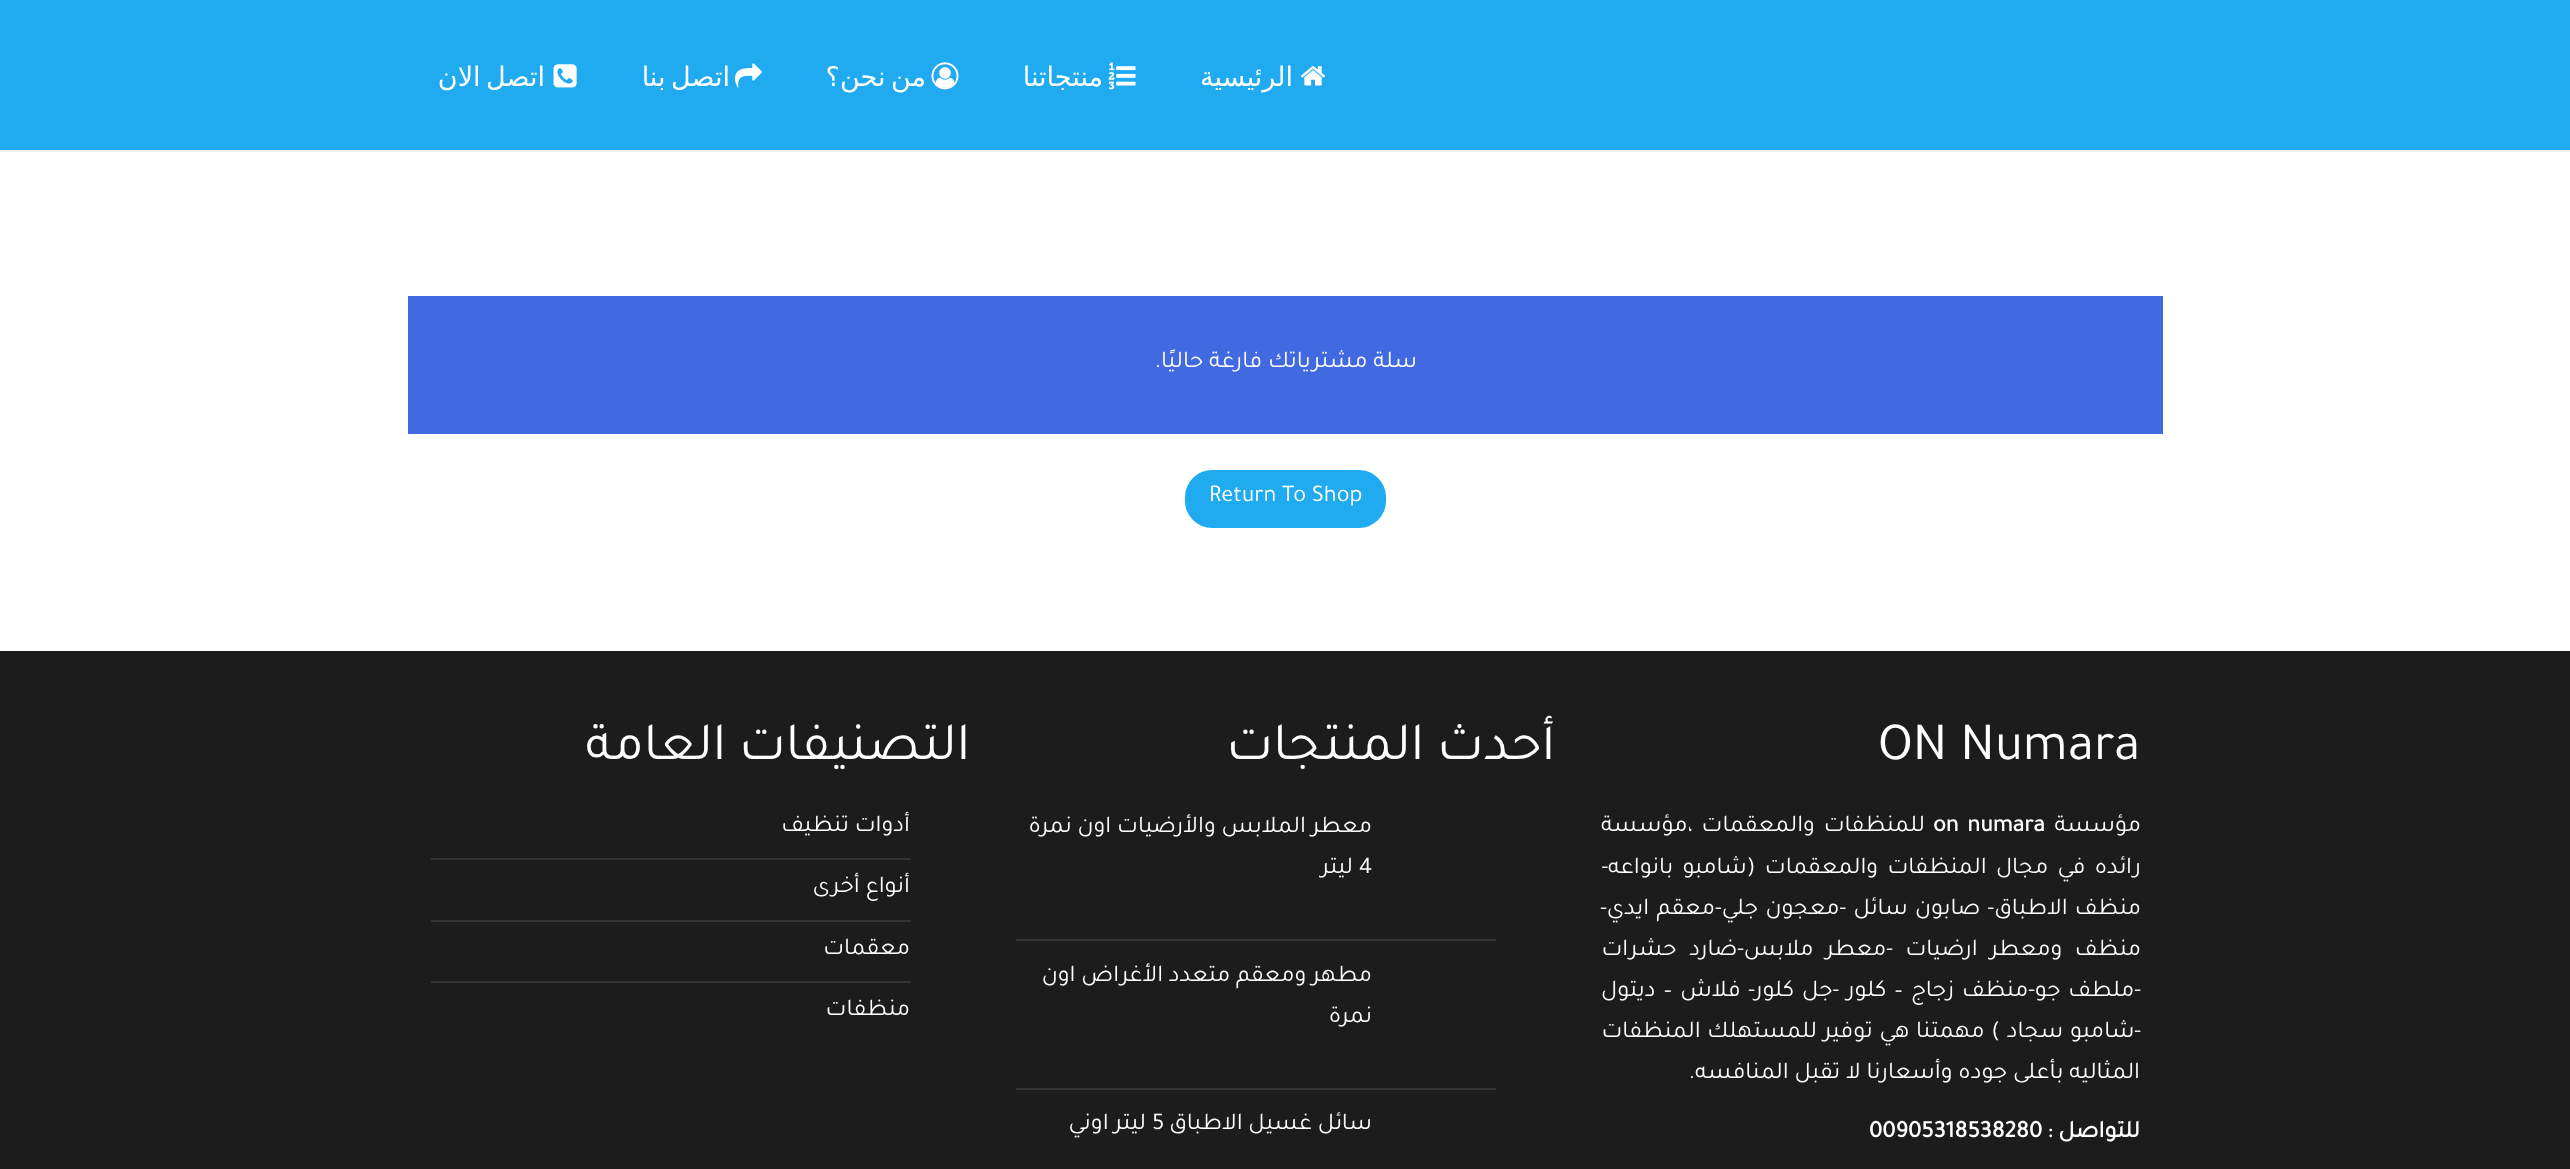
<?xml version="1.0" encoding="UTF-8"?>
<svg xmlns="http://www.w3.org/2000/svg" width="2570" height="1169">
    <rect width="100%" height="100%" fill="#FFFFFF"/>
    <rect x="0" y="150" width="2570" height="2" fill="#F0F0F0"/>
    <rect x="0" y="0" width="2570" height="150" fill="#20ABF1"/>
    <image x="1301" y="66" width="25" height="20" href="img_01.png"/>
    <text x="1293" y="86" font-family="DejaVu Sans" font-size="27" direction="rtl" fill="#FFFFFF">الرئيسية</text>
    <image x="1108" y="62" width="28" height="28" href="img_02.png"/>
    <text x="1103" y="86" font-family="DejaVu Sans" font-size="27" direction="rtl" fill="#FFFFFF">منتجاتنا</text>
    <image x="931" y="62" width="28" height="28" href="img_03.png"/>
    <text x="926" y="86" word-spacing="-3" font-family="DejaVu Sans" font-size="27" direction="rtl" fill="#FFFFFF">من نحن؟</text>
    <image x="735" y="63" width="27" height="25" href="img_04.png"/>
    <text x="730" y="86" word-spacing="-3" font-family="DejaVu Sans" font-size="27" direction="rtl" fill="#FFFFFF">اتصل بنا</text>
    <image x="553" y="64" width="24" height="24" href="img_05.png"/>
    <text x="545" y="86" word-spacing="-3" font-family="DejaVu Sans" font-size="27" direction="rtl" fill="#FFFFFF">اتصل الان</text>
    <rect x="408" y="296" width="1755" height="138" fill="#4169E1"/>
    <text x="1417" y="367" font-family="Tajawal" font-size="24" direction="rtl" fill="#FFFFFF">سلة مشترياتك فارغة حاليًا.</text>
    <rect x="1185" y="470" width="201" height="58" rx="27" fill="#20ABF1"/>
    <text x="1209" y="501" font-family="Tajawal" font-size="24" fill="#FFFFFF">Return To Shop</text>
    <rect x="0" y="651" width="2570" height="518" fill="#1C1C1C"/>
    <text x="1878" y="759" font-family="Tajawal" font-size="54" fill="#FFFFFF">ON Numara</text>
    <text x="2141" y="831" font-family="Tajawal" font-size="24" direction="rtl" fill="#FFFFFF">مؤسسة</text>
    <text x="1933" y="831" word-spacing="3" font-family="Tajawal" font-size="24" font-weight="700" fill="#FFFFFF">on numara</text>
    <text x="1925" y="831" word-spacing="3" font-family="Tajawal" font-size="24" direction="rtl" fill="#FFFFFF">للمنظفات والمعقمات ،مؤسسة</text>
    <text font-family="Tajawal" font-size="24" direction="rtl" fill="#FFFFFF">
        <tspan x="2141" y="873" word-spacing="3.5">رائده في مجال المنظفات والمعقمات (شامبو بانواعه-</tspan>
        <tspan x="2141" y="914" word-spacing="1.5">منظف الاطباق- صابون سائل -معجون جلي-معقم ايدي-</tspan>
        <tspan x="2141" y="955" word-spacing="6.75">منظف ومعطر ارضيات -معطر ملابس-ضارد حشرات</tspan>
        <tspan x="2141" y="996" word-spacing="2">-ملطف جو-منظف زجاج – كلور -جل كلور- فلاش – ديتول</tspan>
        <tspan x="2141" y="1037" word-spacing="1">-شامبو سجاد ) مهمتنا هي توفير للمستهلك المنظفات</tspan>
    </text>
    <text x="2140" y="1078" font-family="Tajawal" font-size="24" direction="rtl" fill="#FFFFFF">المثاليه بأعلى جوده وأسعارنا لا تقبل المنافسه.</text>
    <text x="2140" y="1137" font-family="Tajawal" font-size="24" font-weight="700" direction="rtl" fill="#FFFFFF">للتواصل :</text>
    <text x="1869" y="1137" font-family="Tajawal" font-size="24" font-weight="700" fill="#FFFFFF">00905318538280</text>
    <text x="1555" y="759" font-family="Tajawal" font-size="54" direction="rtl" fill="#FFFFFF">أحدث المنتجات</text>
    <rect x="1016" y="939" width="480" height="2" fill="#333333"/>
    <text x="1372" y="832" font-family="Tajawal" font-size="24" direction="rtl" fill="#FFFFFF">معطر الملابس والأرضيات اون نمرة</text>
    <text x="1359" y="873" font-family="Tajawal" font-size="24" fill="#FFFFFF">4</text>
    <text x="1353" y="873" font-family="Tajawal" font-size="24" direction="rtl" fill="#FFFFFF">ليتر</text>
    <rect x="1016" y="1088" width="480" height="2" fill="#333333"/>
    <text font-family="Tajawal" font-size="24" direction="rtl" fill="#FFFFFF">
        <tspan x="1372" y="981">مطهر ومعقم متعدد الأغراض اون</tspan>
        <tspan x="1372" y="1022">نمرة</tspan>
    </text>
    <text x="1372" y="1129" font-family="Tajawal" font-size="24" direction="rtl" fill="#FFFFFF">سائل غسيل الاطباق</text>
    <text x="1152" y="1129" font-family="Tajawal" font-size="24" fill="#FFFFFF">5</text>
    <text x="1146" y="1129" font-family="Tajawal" font-size="24" direction="rtl" fill="#FFFFFF">ليتر اوني</text>
    <text x="970" y="759" font-family="Tajawal" font-size="54" direction="rtl" fill="#FFFFFF">التصنيفات العامة</text>
    <rect x="431" y="858" width="480" height="2" fill="#333333"/>
    <text x="910" y="831" font-family="Tajawal" font-size="24" direction="rtl" fill="#FFFFFF">أدوات تنظيف</text>
    <rect x="431" y="920" width="480" height="2" fill="#333333"/>
    <text x="910" y="892" font-family="Tajawal" font-size="24" direction="rtl" fill="#FFFFFF">أنواع أخرى</text>
    <rect x="431" y="981" width="480" height="2" fill="#333333"/>
    <text x="910" y="954" font-family="Tajawal" font-size="24" direction="rtl" fill="#FFFFFF">معقمات</text>
    <text x="910" y="1015" font-family="Tajawal" font-size="24" direction="rtl" fill="#FFFFFF">منظفات</text>
</svg>
